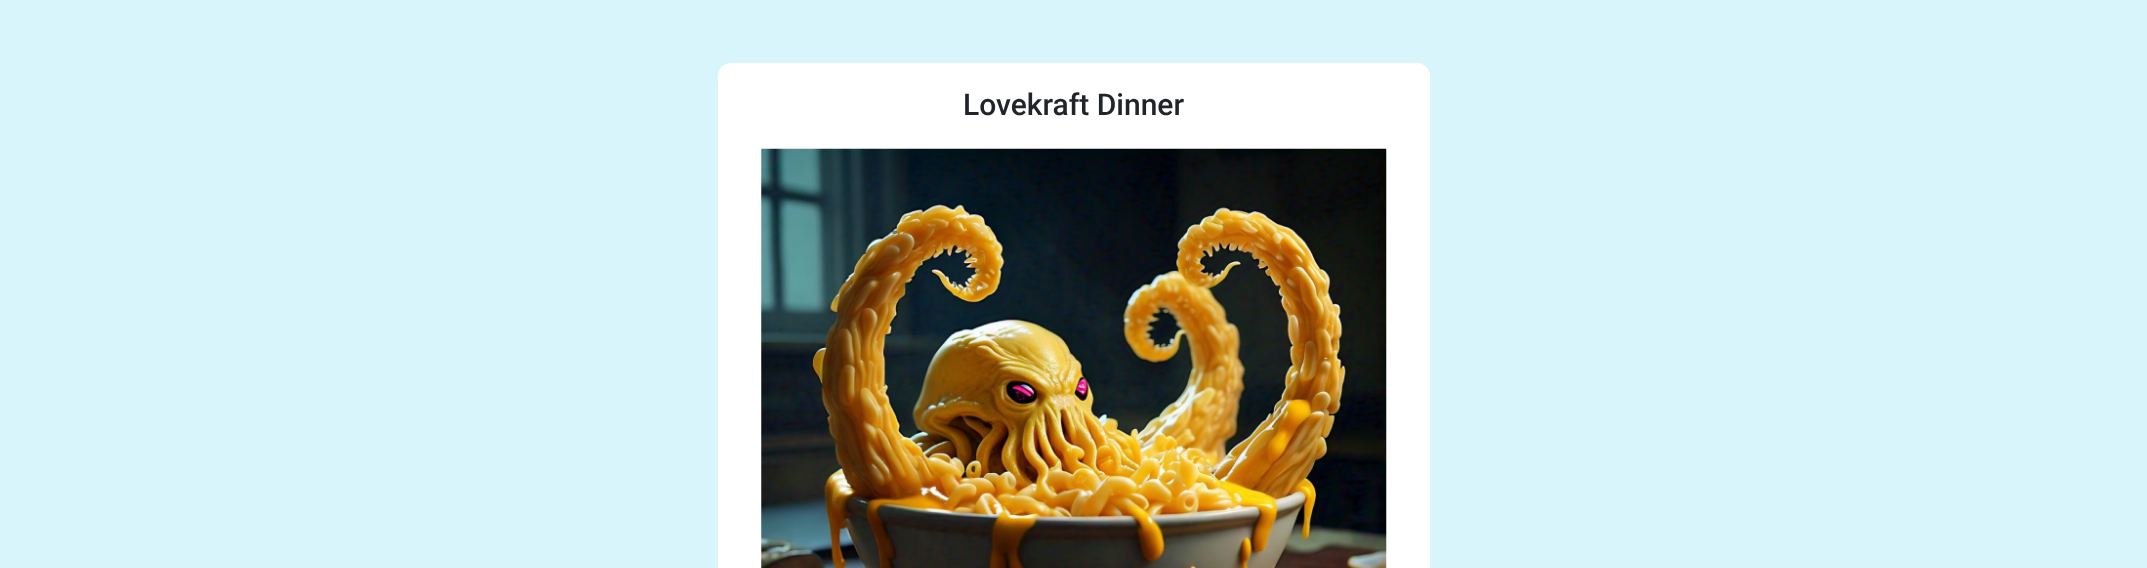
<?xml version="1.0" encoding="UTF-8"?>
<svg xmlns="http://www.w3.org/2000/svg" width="2147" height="568">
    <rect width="100%" height="100%" fill="#D7F5FA"/>
    <rect x="718" y="63" width="712" height="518" rx="13" fill="#FFFFFF"/>
    <text x="963" y="115" font-family="Roboto" font-size="30" font-weight="500" fill="#212529">Lovekraft Dinner</text>
    <image x="761" y="148" width="626" height="420" href="img_01.png"/>
</svg>
